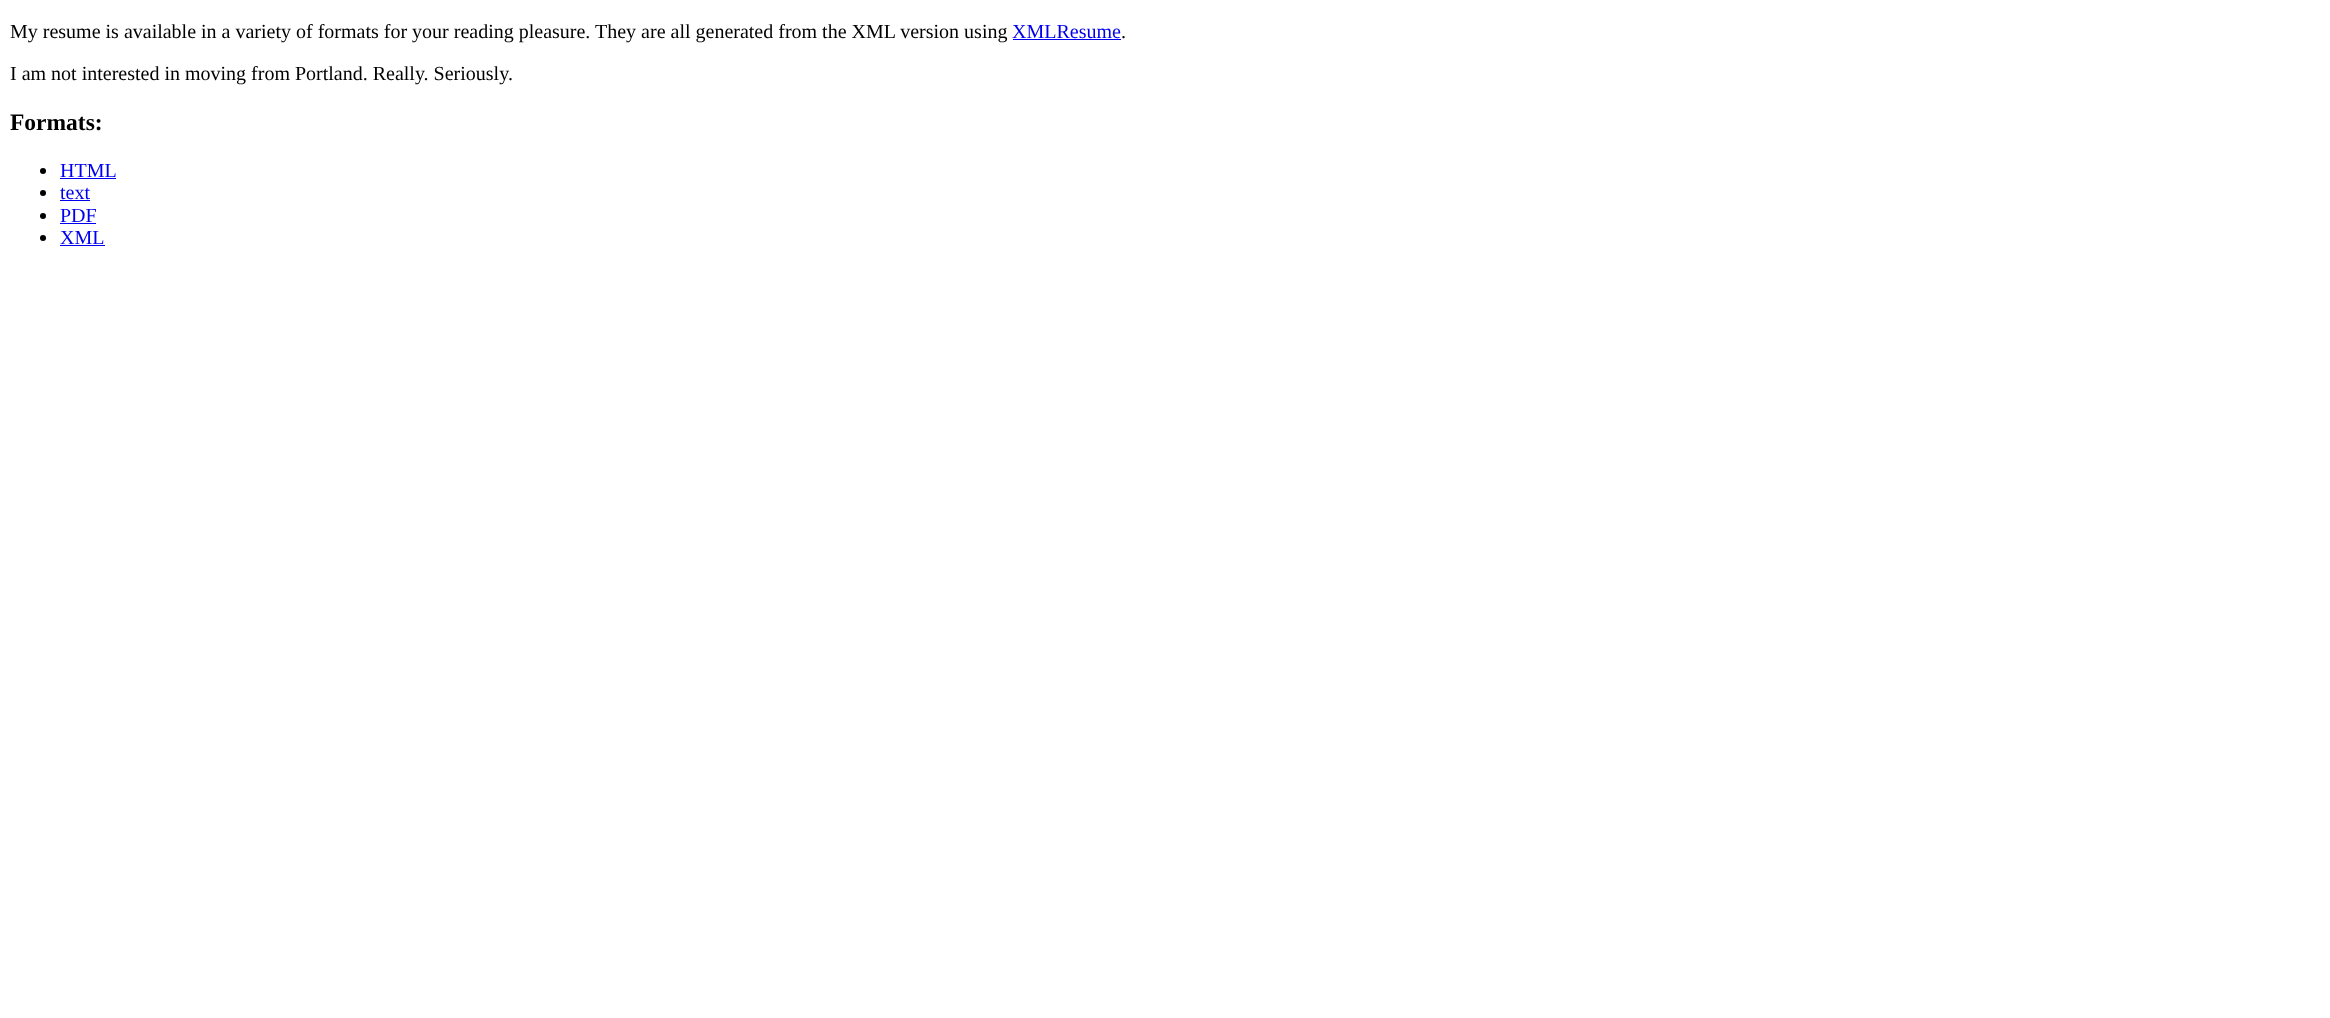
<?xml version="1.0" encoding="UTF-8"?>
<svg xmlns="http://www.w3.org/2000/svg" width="2330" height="1018">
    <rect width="100%" height="100%" fill="#FFFFFF"/>
    <text x="10" y="38" font-family="Liberation Serif" font-size="20" fill="#000000">My resume is available in a variety of formats for your reading pleasure.</text>
    <text x="595" y="38" font-family="Liberation Serif" font-size="20" fill="#000000">They are all generated from the XML version using</text>
    <text x="1012" y="38" font-family="Liberation Serif" font-size="20" fill="#0000EE">XMLResume</text>
    <rect x="1013" y="39" width="108" height="1" fill="#0000EE"/>
    <text x="1121" y="38" font-family="Liberation Serif" font-size="20" fill="#000000">.</text>
    <text x="10" y="80" font-family="Liberation Serif" font-size="20" fill="#000000">I am not interested in moving from Portland. Really. Seriously.</text>
    <text x="10" y="130" font-family="Liberation Serif" font-size="23.5" font-weight="700" fill="#000000">Formats:</text>
    <circle cx="43" cy="171" r="3" fill="#000000"/>
    <text x="60" y="177" font-family="Liberation Serif" font-size="20" fill="#0000EE">HTML</text>
    <rect x="60" y="178" width="56" height="1" fill="#0000EE"/>
    <circle cx="43" cy="193" r="3" fill="#000000"/>
    <text x="60" y="199" font-family="Liberation Serif" font-size="20" fill="#0000EE">text</text>
    <rect x="60" y="200" width="30" height="1" fill="#0000EE"/>
    <circle cx="43" cy="216" r="3" fill="#000000"/>
    <text x="60" y="222" font-family="Liberation Serif" font-size="20" fill="#0000EE">PDF</text>
    <rect x="60" y="223" width="36" height="1" fill="#0000EE"/>
    <circle cx="43" cy="238" r="3" fill="#000000"/>
    <text x="60" y="244" font-family="Liberation Serif" font-size="20" fill="#0000EE">XML</text>
    <rect x="60" y="245" width="45" height="1" fill="#0000EE"/>
</svg>
